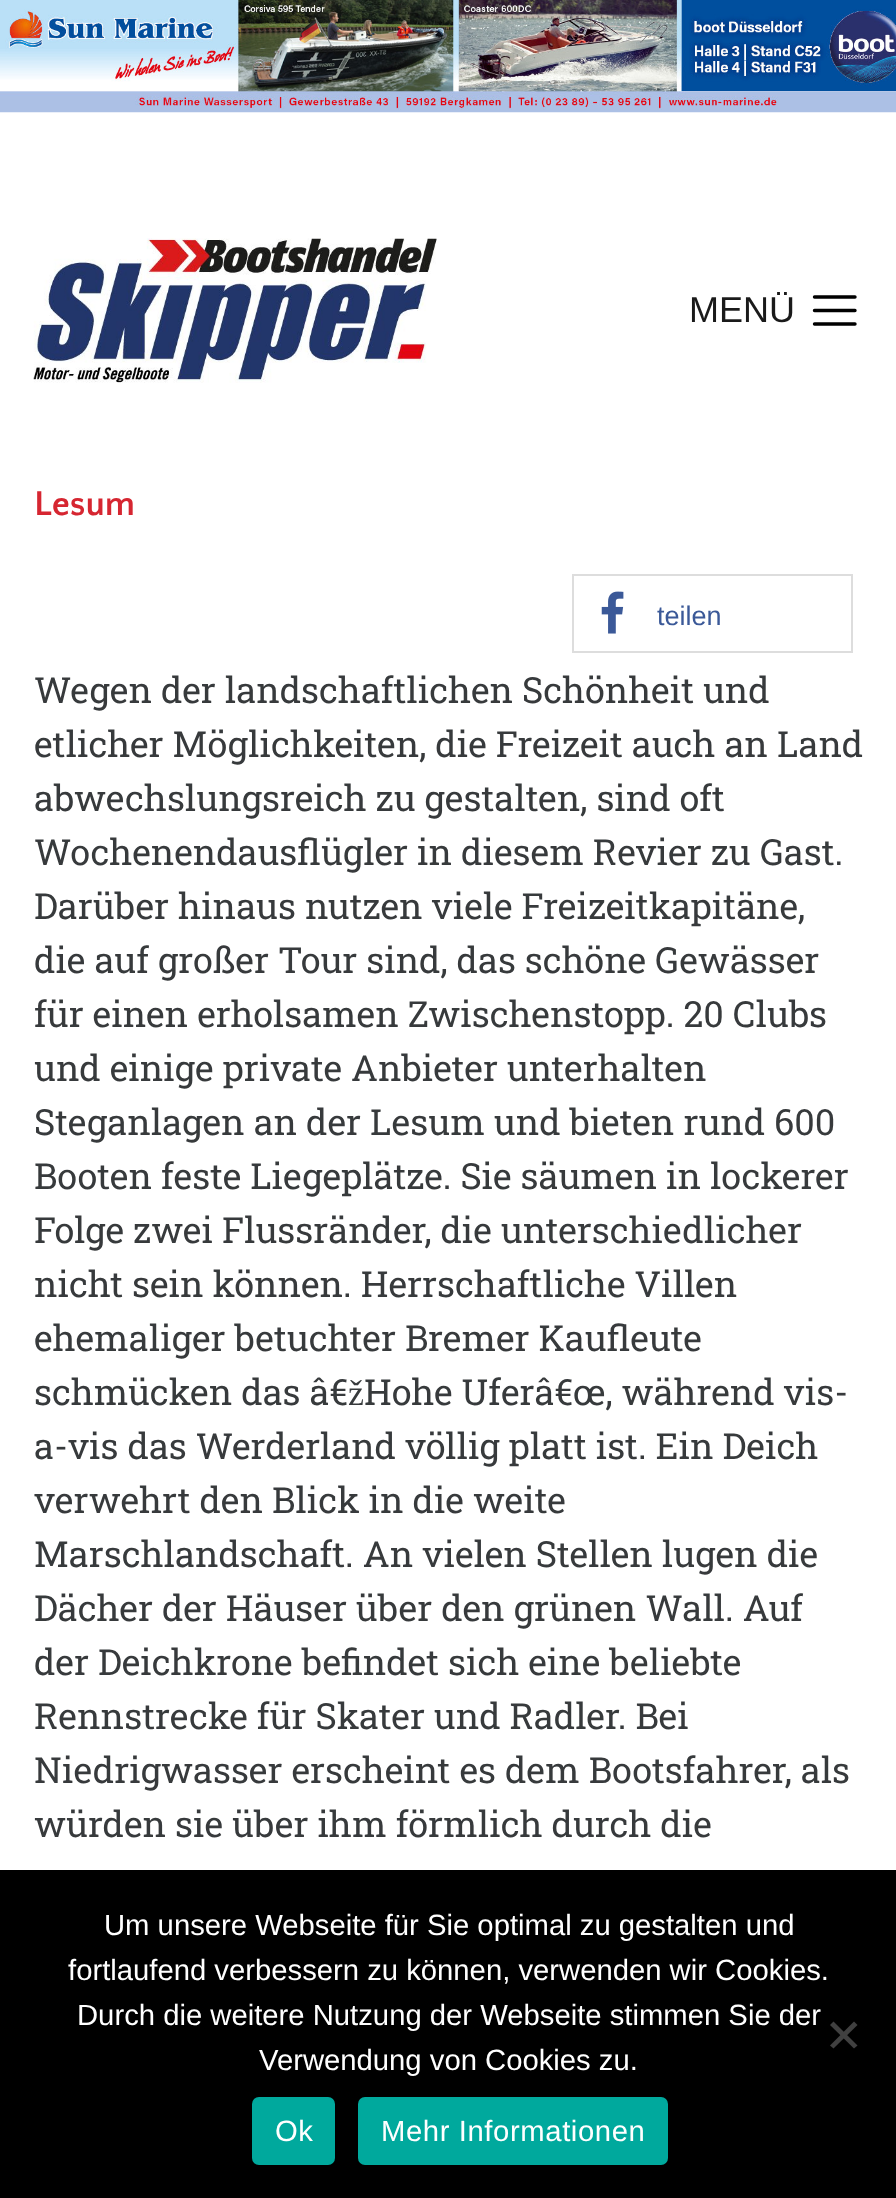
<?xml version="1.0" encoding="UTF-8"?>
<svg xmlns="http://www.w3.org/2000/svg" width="896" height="2198">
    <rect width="100%" height="100%" fill="#FFFFFF"/>
    <image x="0" y="0" width="896" height="113" href="img_01.png"/>
    <image x="33" y="238" width="404" height="145" href="img_02.png"/>
    <text x="689" y="322" font-family="Liberation Sans" font-size="36" fill="#1A1A1A">MENÜ</text>
    <path d="M 814.5 297 H 855 M 814.5 310.5 H 855 M 814.5 324 H 855" fill="none" stroke="#000000" stroke-width="3.4" stroke-linecap="round"/>
    <text x="34" y="515" font-family="Quattrocento Sans" font-size="36" font-weight="700" fill="#D62631">Lesum</text>
    <rect x="573" y="575" width="279" height="77" fill="none" stroke="#DDDDDD" stroke-width="2"/>
    <image x="601" y="591" width="23" height="43" href="img_03.png"/>
    <text x="657" y="625" font-family="Liberation Sans" font-size="27" fill="#3B5998">teilen</text>
    <text font-family="Roboto Slab" font-size="36" fill="#373A3C">
        <tspan x="34" y="703">Wegen der landschaftlichen Schönheit und</tspan>
        <tspan x="34" y="757">etlicher Möglichkeiten, die Freizeit auch an Land</tspan>
        <tspan x="34" y="811">abwechslungsreich zu gestalten, sind oft</tspan>
        <tspan x="34" y="865">Wochenendausflügler in diesem Revier zu Gast.</tspan>
        <tspan x="34" y="919">Darüber hinaus nutzen viele Freizeitkapitäne,</tspan>
        <tspan x="34" y="973">die auf großer Tour sind, das schöne Gewässer</tspan>
        <tspan x="34" y="1027">für einen erholsamen Zwischenstopp. 20 Clubs</tspan>
        <tspan x="34" y="1081">und einige private Anbieter unterhalten</tspan>
        <tspan x="34" y="1135">Steganlagen an der Lesum und bieten rund 600</tspan>
        <tspan x="34" y="1189">Booten feste Liegeplätze. Sie säumen in lockerer</tspan>
        <tspan x="34" y="1243">Folge zwei Flussränder, die unterschiedlicher</tspan>
        <tspan x="34" y="1297">nicht sein können. Herrschaftliche Villen</tspan>
        <tspan x="34" y="1351">ehemaliger betuchter Bremer Kaufleute</tspan>
        <tspan x="34" y="1405">schmücken das â€</tspan>
    </text>
    <text x="348" y="1405" font-family="Liberation Serif" font-size="36" fill="#373A3C">ž</text>
    <text x="364" y="1405" font-family="Roboto Slab" font-size="36" fill="#373A3C">Hohe Uferâ€œ, während vis-</text>
    <text font-family="Roboto Slab" font-size="36" fill="#373A3C">
        <tspan x="34" y="1459">a-vis das Werderland völlig platt ist. Ein Deich</tspan>
        <tspan x="34" y="1513">verwehrt den Blick in die weite</tspan>
        <tspan x="34" y="1567">Marschlandschaft. An vielen Stellen lugen die</tspan>
        <tspan x="34" y="1621">Dächer der Häuser über den grünen Wall. Auf</tspan>
        <tspan x="34" y="1675">der Deichkrone befindet sich eine beliebte</tspan>
        <tspan x="34" y="1729">Rennstrecke für Skater und Radler. Bei</tspan>
        <tspan x="34" y="1783">Niedrigwasser erscheint es dem Bootsfahrer, als</tspan>
        <tspan x="34" y="1837">würden sie über ihm förmlich durch die</tspan>
    </text>
    <rect x="0" y="1870" width="896" height="328" fill="#000000"/>
    <text x="104" y="1935" font-family="Liberation Sans" font-size="29.25" fill="#FFFFFF">Um unsere Webseite für Sie optimal zu gestalten und</text>
    <text x="68" y="1980" font-family="Liberation Sans" font-size="29.25" fill="#FFFFFF">fortlaufend verbessern zu können, verwenden wir Cookies.</text>
    <text x="77" y="2025" font-family="Liberation Sans" font-size="29.25" fill="#FFFFFF">Durch die weitere Nutzung der Webseite stimmen Sie der</text>
    <text x="259" y="2070" font-family="Liberation Sans" font-size="29.25" fill="#FFFFFF">Verwendung von Cookies zu.</text>
    <path d="M 854 2021.5 L 857.5 2025 L 833.5 2048.5 L 830 2045.5 Z" fill="#404040"/>
    <path d="M 830 2025 L 833.5 2021.5 L 857.5 2045.5 L 854 2048.5 Z" fill="#404040"/>
    <rect x="252" y="2097" width="83" height="68" rx="7" fill="#00A99D"/>
    <text x="275" y="2141" font-family="Liberation Sans" font-size="29.25" letter-spacing="0.6" fill="#FFFFFF">Ok</text>
    <rect x="358" y="2097" width="310" height="68" rx="7" fill="#00A99D"/>
    <text x="381" y="2141" font-family="Liberation Sans" font-size="29.25" letter-spacing="0.6" fill="#FFFFFF">Mehr Informationen</text>
</svg>
